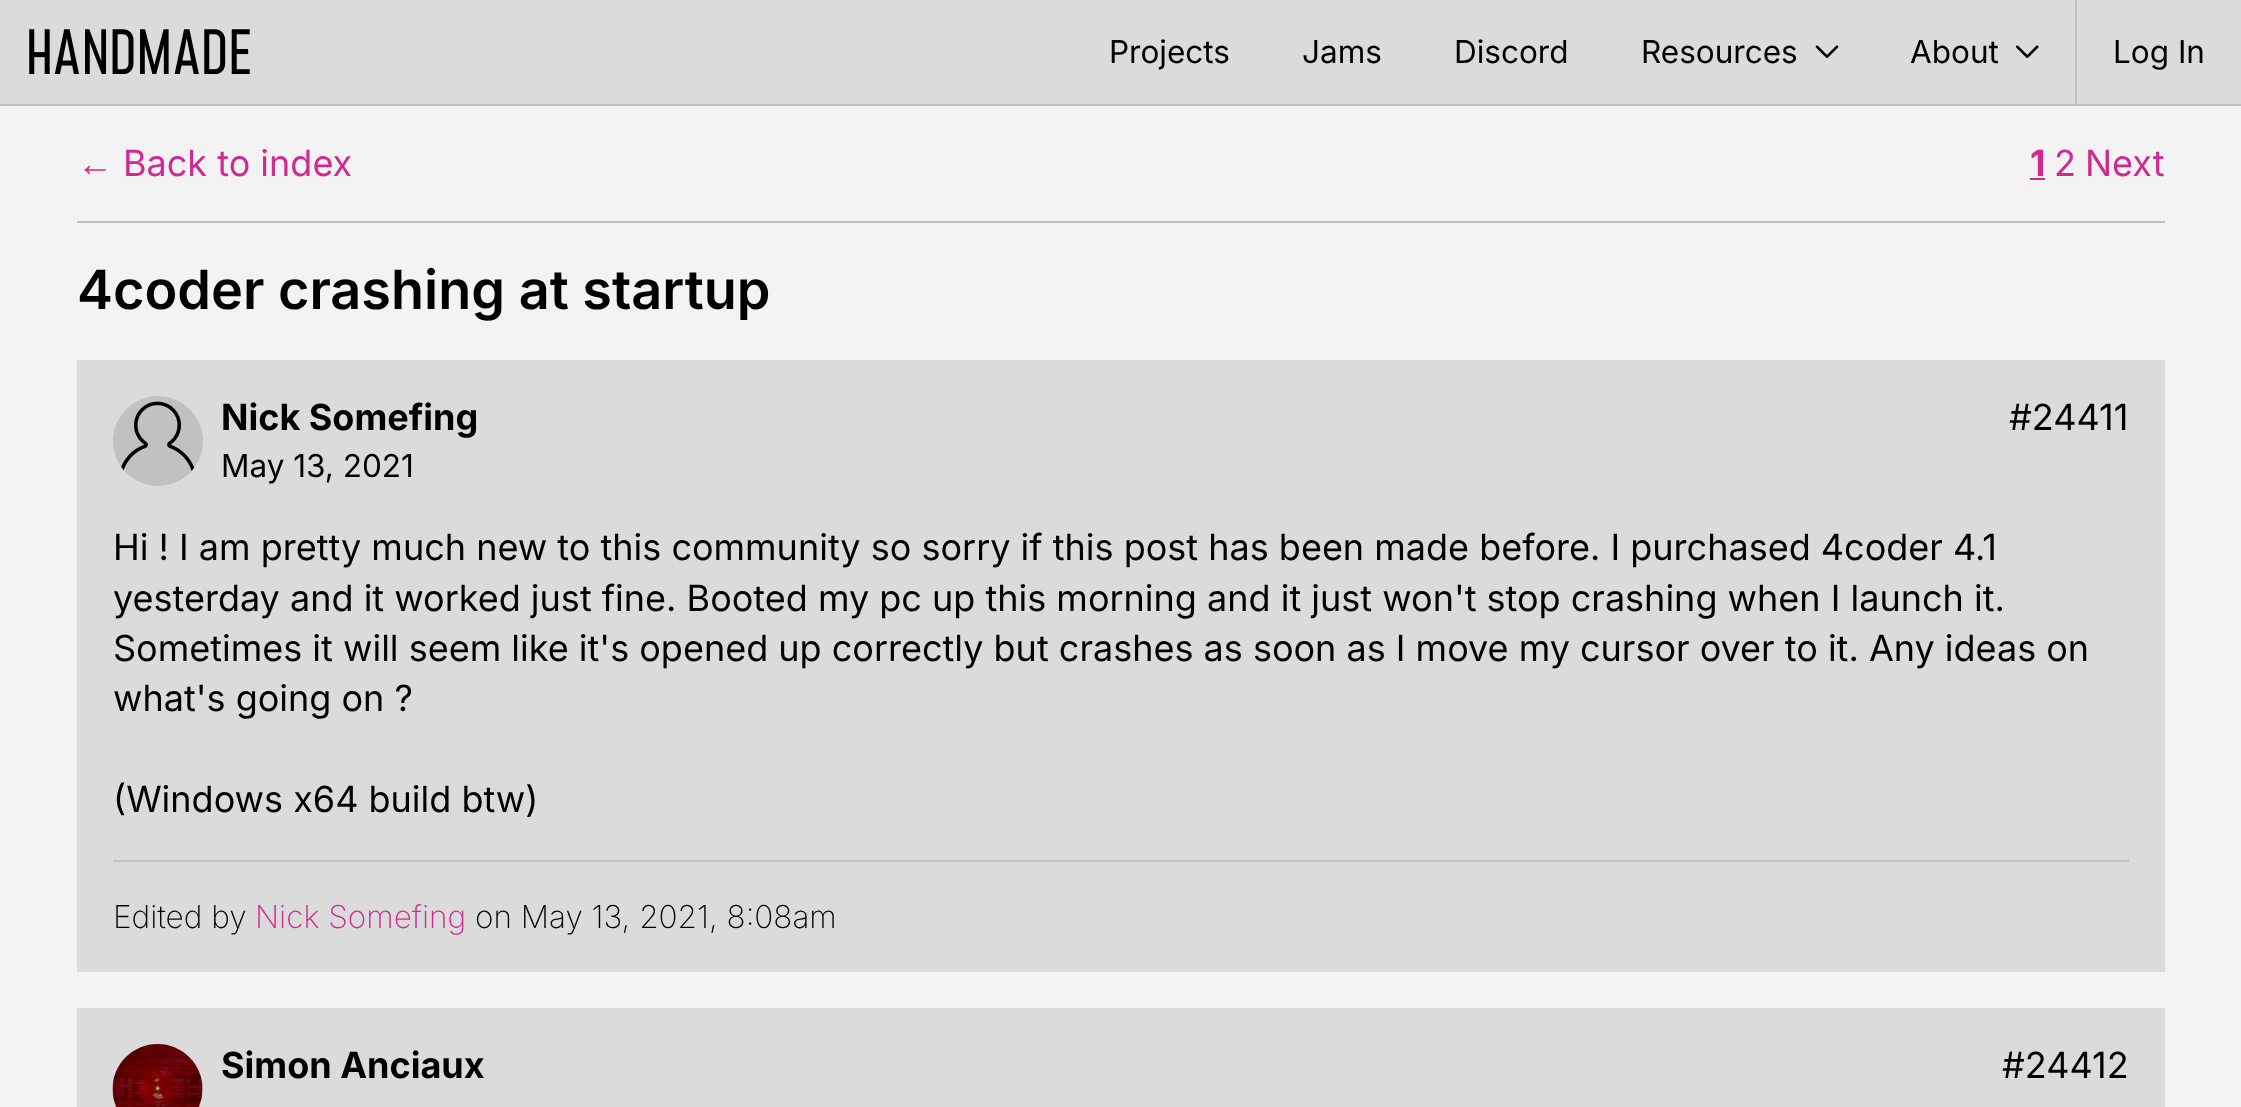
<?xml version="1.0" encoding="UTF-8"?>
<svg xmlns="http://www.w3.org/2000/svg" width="2241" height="1107">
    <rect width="100%" height="100%" fill="#F3F3F3"/>
    <rect x="0" y="0" width="2241" height="104" fill="#DBDBDB"/>
    <rect x="0" y="104" width="2241" height="2" fill="#C1C1C1"/>
    <image x="29" y="29" width="221" height="45" href="img_01.png"/>
    <text x="1109" y="63" font-family="Inter" font-size="31.5" fill="#000000">Projects</text>
    <text x="1302" y="63" font-family="Inter" font-size="31.5" fill="#000000">Jams</text>
    <text x="1454" y="63" font-family="Inter" font-size="31.5" fill="#000000">Discord</text>
    <text x="1641" y="63" font-family="Inter" font-size="31.5" fill="#000000">Resources</text>
    <image x="1815" y="45" width="24" height="13" href="img_02.png"/>
    <text x="1910" y="63" font-family="Inter" font-size="31.5" fill="#000000">About</text>
    <image x="2016" y="45" width="23" height="13" href="img_03.png"/>
    <rect x="2075" y="0" width="2" height="104" fill="#C1C1C1"/>
    <text x="2113" y="63" font-family="Inter" font-size="31.5" fill="#000000">Log In</text>
    <text x="77" y="176" font-family="Liberation Sans" font-size="36" fill="#D12991">←</text>
    <text x="123" y="176" font-family="Inter" font-size="36" fill="#D12991">Back to index</text>
    <text x="2030" y="176" font-family="Inter" font-size="36" font-weight="700" fill="#D12991">1</text>
    <rect x="2030" y="178" width="15" height="2" fill="#D12991"/>
    <text x="2054" y="176" font-family="Inter" font-size="36" fill="#D12991">2</text>
    <text x="2085" y="176" font-family="Inter" font-size="36" fill="#D12991">Next</text>
    <rect x="77" y="221" width="2088" height="2" fill="#C1C1C1"/>
    <text x="77" y="309" font-family="Inter" font-size="54" font-weight="600" fill="#000000">4coder crashing at startup</text>
    <rect x="77" y="360" width="2088" height="612" fill="#DBDBDB"/>
    <circle cx="158" cy="441" r="45" fill="#C1C1C1"/>
    <image x="121" y="401" width="74" height="71" href="img_04.png"/>
    <text x="221" y="430" font-family="Inter" font-size="36" font-weight="700" fill="#000000">Nick Somefing</text>
    <text x="2009" y="430" font-family="Inter" font-size="36" fill="#000000">#24411</text>
    <text x="221" y="477" font-family="Inter" font-size="31.5" fill="#000000">May 13, 2021</text>
    <text font-family="Inter" font-size="36" fill="#000000">
        <tspan x="113" y="560">Hi ! I am pretty much new to this community so sorry if this post has been made before. I purchased 4coder 4.1</tspan>
        <tspan x="113" y="611">yesterday and it worked just fine. Booted my pc up this morning and it just won't stop crashing when I launch it.</tspan>
        <tspan x="113" y="661">Sometimes it will seem like it's opened up correctly but crashes as soon as I move my cursor over to it. Any ideas on</tspan>
        <tspan x="113" y="711">what's going on ?</tspan>
    </text>
    <text x="113" y="812" font-family="Inter" font-size="36" fill="#000000">(Windows x64 build btw)</text>
    <rect x="113" y="860" width="2016" height="2" fill="#C1C1C1"/>
    <text x="113" y="928" font-family="Inter" font-size="31.5" font-weight="200" fill="#000000">Edited by</text>
    <text x="255" y="928" font-family="Inter" font-size="31.5" font-weight="200" fill="#D12991">Nick Somefing</text>
    <text x="475" y="928" font-family="Inter" font-size="31.5" font-weight="200" fill="#000000">on May 13, 2021, 8:08am</text>
    <rect x="77" y="1008" width="2088" height="99" fill="#DBDBDB"/>
    <circle cx="158" cy="1089" r="45" fill="#C1C1C1"/>
    <image x="112" y="1044" width="91" height="63" href="img_05.png"/>
    <text x="221" y="1078" font-family="Inter" font-size="36" font-weight="700" fill="#000000">Simon Anciaux</text>
    <text x="2002" y="1078" font-family="Inter" font-size="36" fill="#000000">#24412</text>
</svg>
